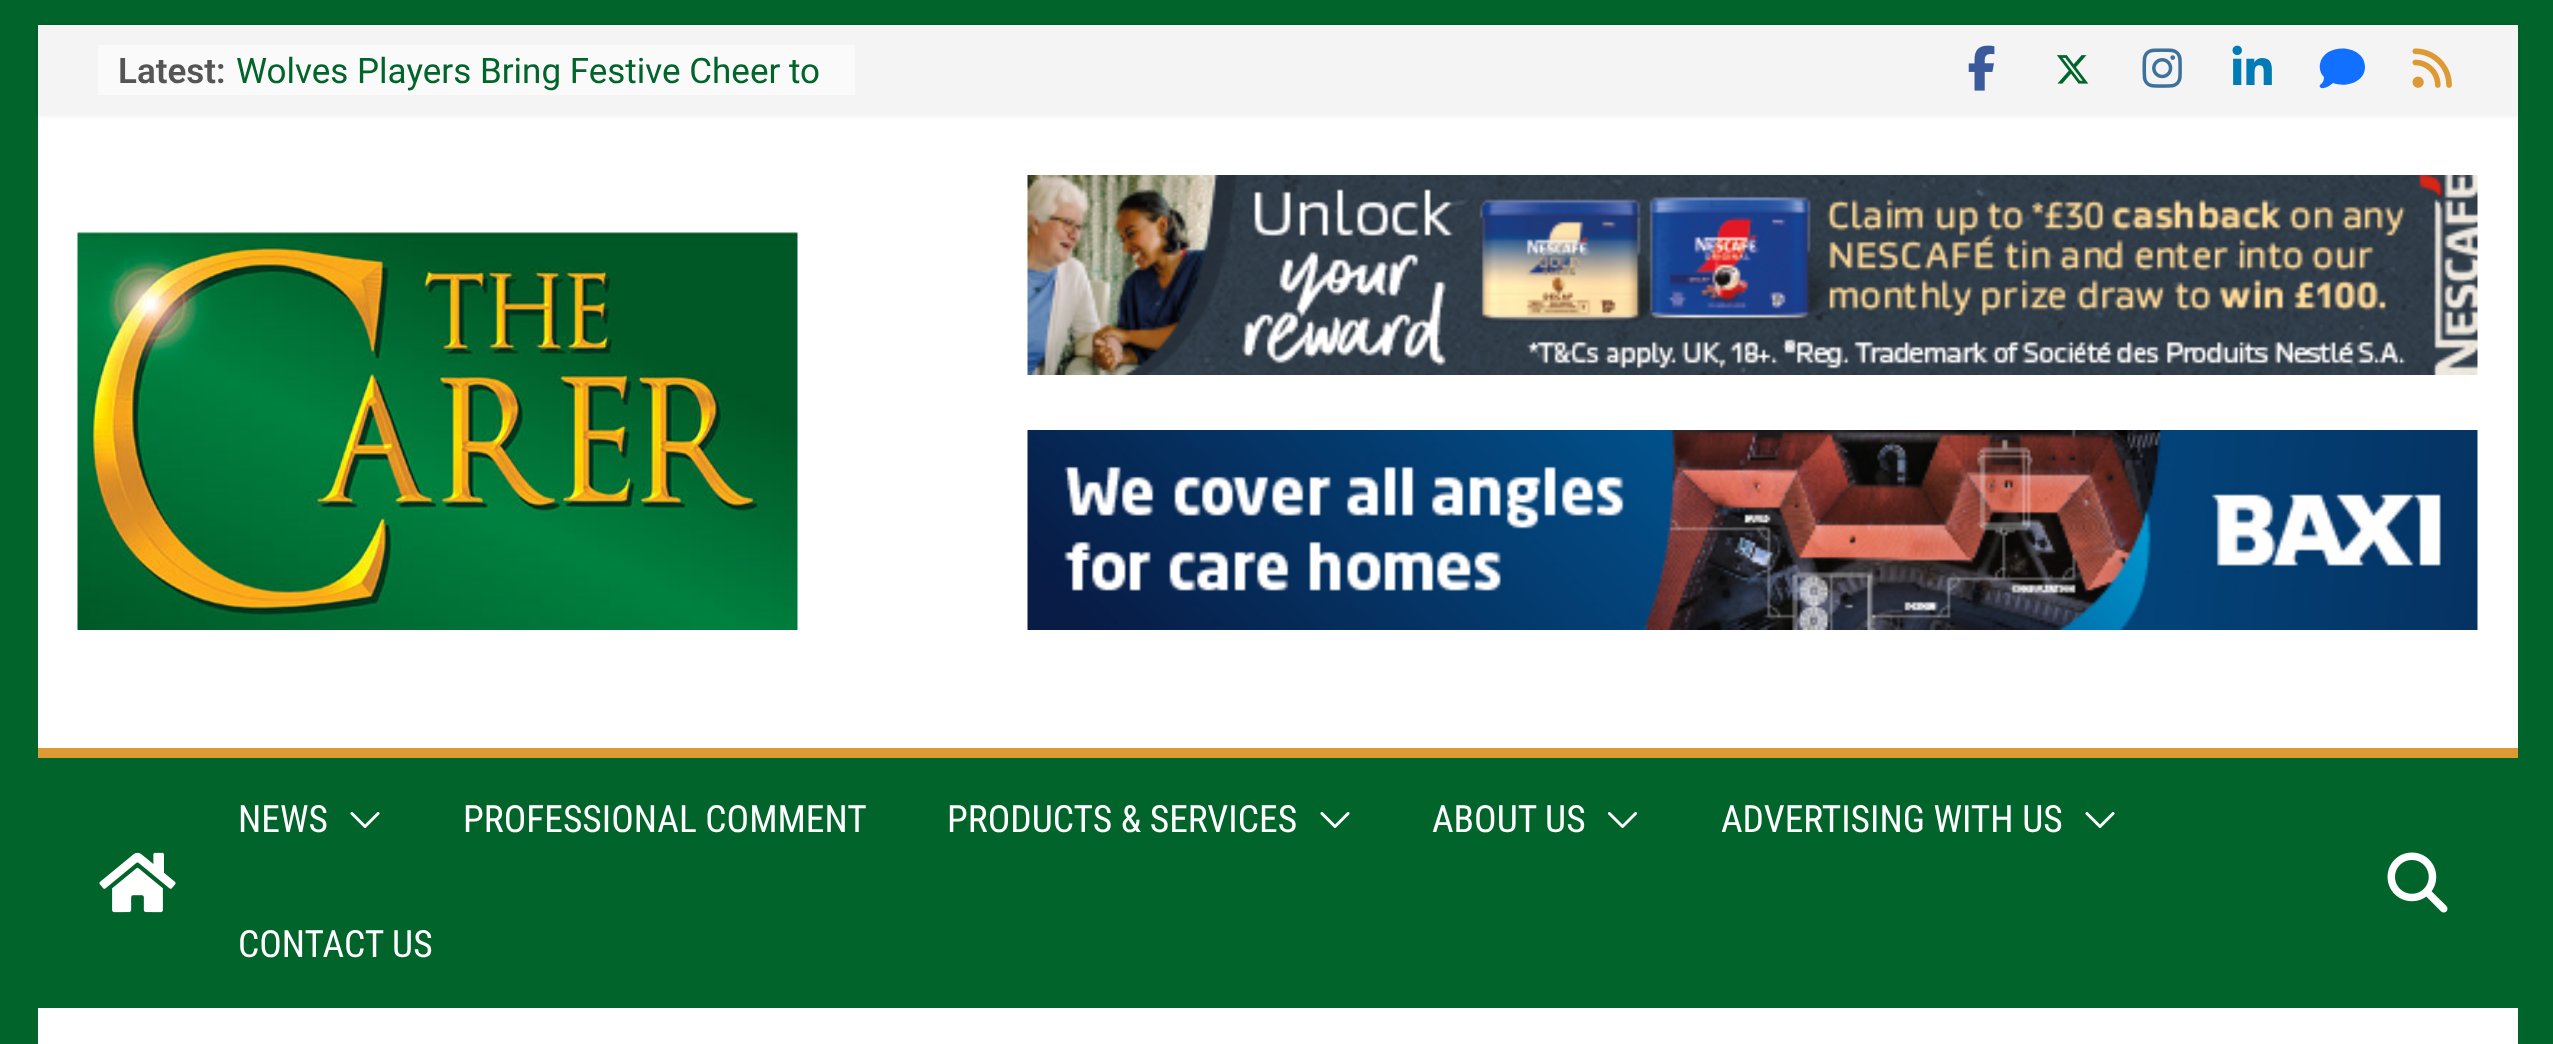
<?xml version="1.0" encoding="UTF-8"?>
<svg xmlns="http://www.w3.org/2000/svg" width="2553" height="1044">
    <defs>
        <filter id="blur1" x="-50%" y="-200%" width="200%" height="500%"><feGaussianBlur stdDeviation="2.5"/></filter>
    </defs>
    <rect width="100%" height="100%" fill="#01642B"/>
    <rect x="38" y="115" width="2480" height="633" fill="#FFFFFF"/>
    <rect x="38" y="25" width="2480" height="90" fill="#000000" fill-opacity="0.1" filter="url(#blur1)"/>
    <rect x="38" y="25" width="2480" height="90" fill="#F4F4F5"/>
    <rect x="98" y="45" width="757" height="50" fill="#FAFAFA"/>
    <text x="118" y="83" font-family="Roboto" font-size="35" font-weight="600" fill="#555555">Latest:</text>
    <text x="236" y="83" font-family="Roboto" font-size="35" fill="#01642B">Wolves Players Bring Festive Cheer to</text>
    <image x="1968" y="45" width="27" height="46" href="img_01.png"/>
    <image x="2057" y="55" width="32" height="29" href="img_02.png"/>
    <image x="2142" y="48" width="40" height="40" href="img_03.png"/>
    <image x="2232" y="45" width="40" height="40" href="img_04.png"/>
    <path d="M 2365 67 C 2365 82 2346 88 2333 83 C 2324 91 2318 88 2320 85 C 2323 83 2324 80 2324 77 C 2321 74 2319 69 2320 64 C 2324 42 2365 44 2365 67 Z" fill="#1170FF"/>
    <image x="2412" y="48" width="40" height="40" href="img_05.png"/>
    <image x="77" y="232" width="721" height="398" href="img_06.png"/>
    <image x="1027" y="175" width="1451" height="200" href="img_07.png"/>
    <image x="1027" y="430" width="1451" height="200" href="img_08.png"/>
    <rect x="38" y="748" width="2480" height="10" fill="#DD9933"/>
    <image x="99" y="852" width="77" height="61" href="img_09.png"/>
    <text x="238" y="832" font-family="Roboto Condensed" font-size="37.5" fill="#FFFFFF">NEWS</text>
    <image x="350" y="812" width="30" height="16" href="img_10.png"/>
    <text x="463" y="832" font-family="Roboto Condensed" font-size="37.5" fill="#FFFFFF">PROFESSIONAL COMMENT</text>
    <text x="947" y="832" font-family="Roboto Condensed" font-size="37.5" fill="#FFFFFF">PRODUCTS &amp; SERVICES</text>
    <image x="1320" y="812" width="30" height="16" href="img_10.png"/>
    <text x="1432" y="832" font-family="Roboto Condensed" font-size="37.5" fill="#FFFFFF">ABOUT US</text>
    <image x="1607" y="812" width="31" height="16" href="img_11.png"/>
    <text x="1721" y="832" font-family="Roboto Condensed" font-size="37.5" fill="#FFFFFF">ADVERTISING WITH US</text>
    <image x="2085" y="812" width="30" height="16" href="img_10.png"/>
    <text x="238" y="957" font-family="Roboto Condensed" font-size="37.5" fill="#FFFFFF">CONTACT US</text>
    <image x="2387" y="852" width="61" height="61" href="img_12.png"/>
    <rect x="38" y="1008" width="2480" height="36" fill="#FFFFFF"/>
</svg>
